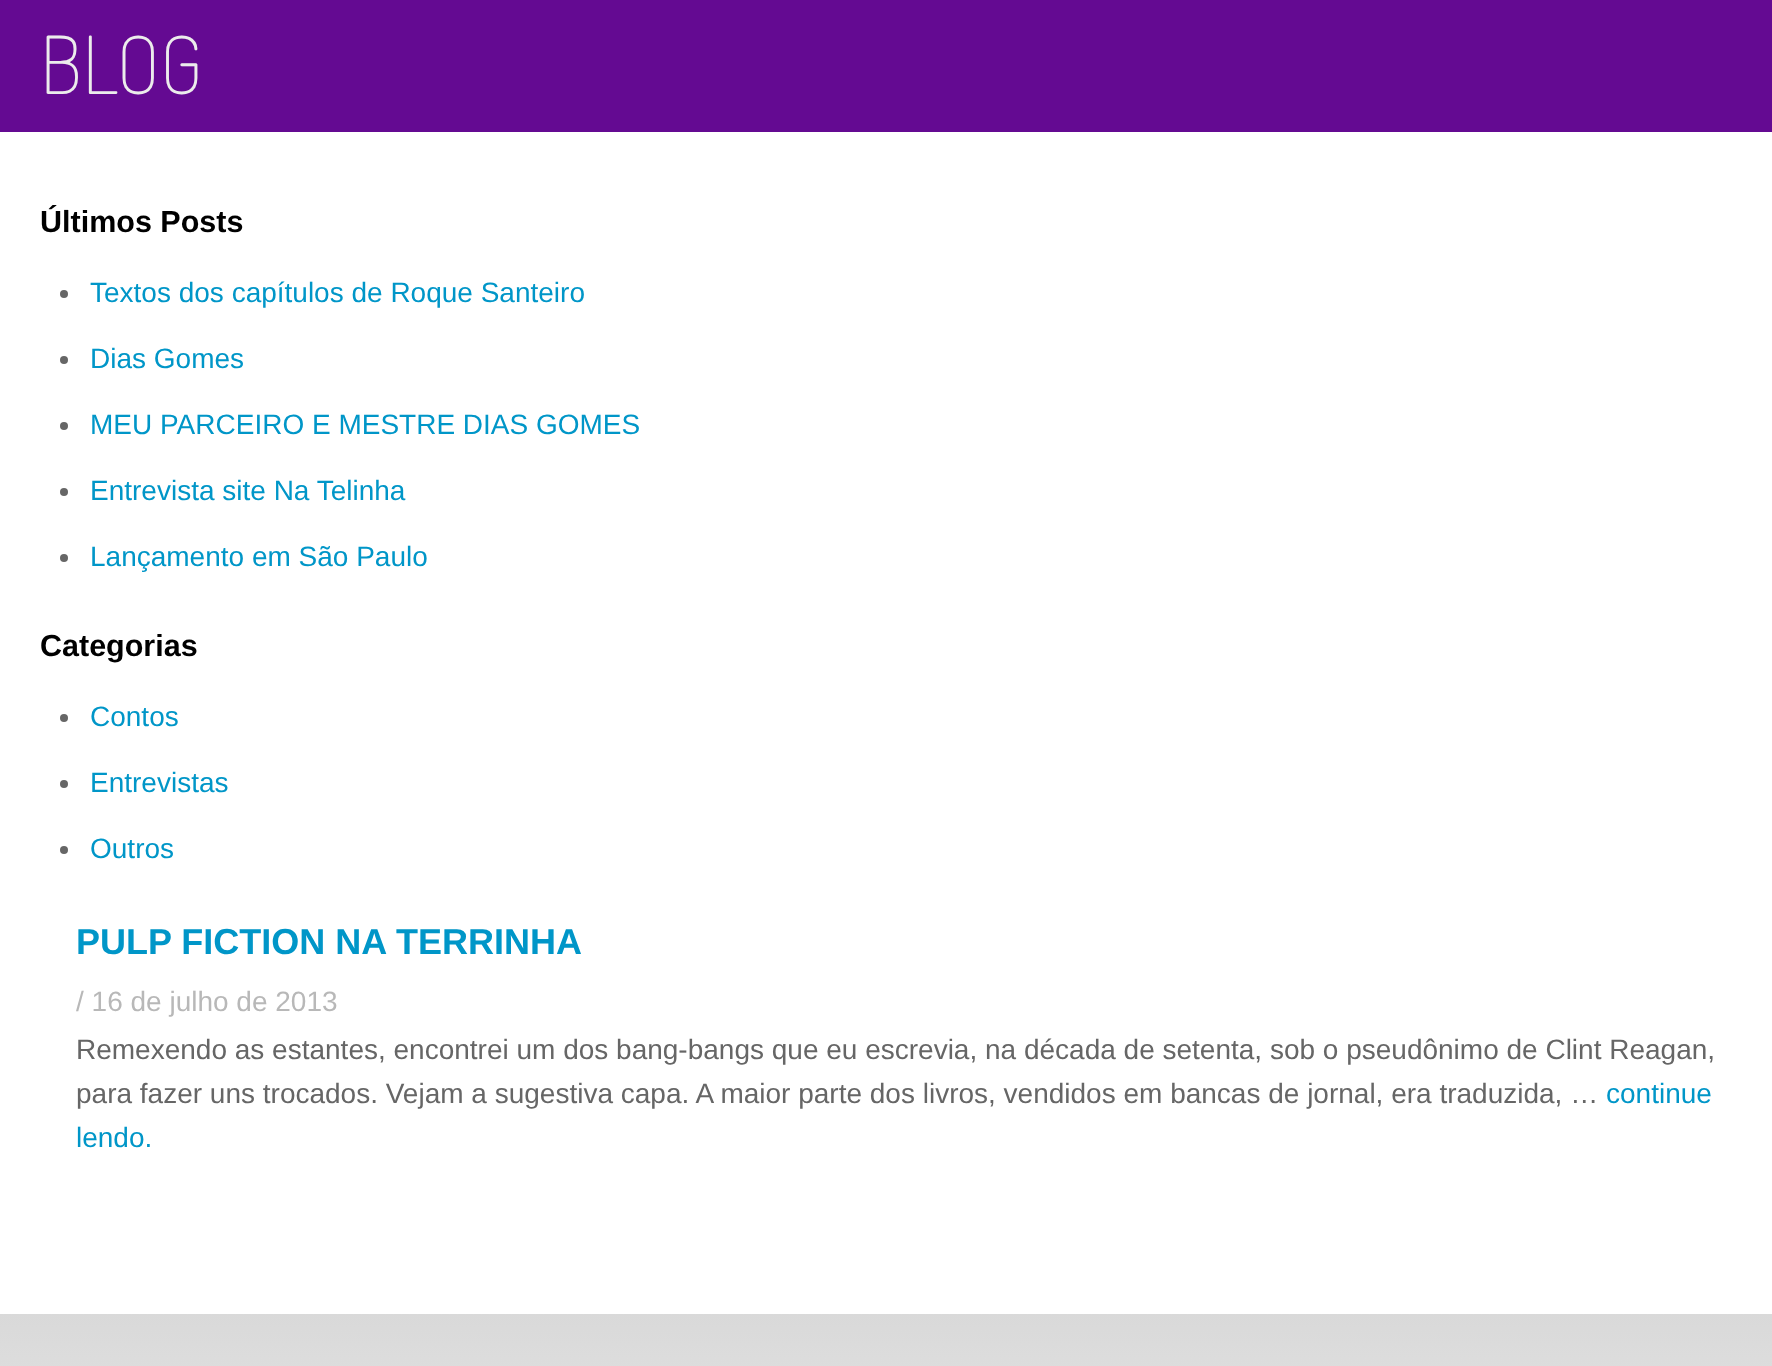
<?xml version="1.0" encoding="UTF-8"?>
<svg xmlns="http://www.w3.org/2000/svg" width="1772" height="1366">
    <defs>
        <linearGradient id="g1" gradientUnits="userSpaceOnUse" x1="886" y1="1314" x2="886" y2="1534"><stop offset="0" stop-color="#D9D9D9"/><stop offset="1" stop-color="#E8E8E8"/></linearGradient>
    </defs>
    <rect width="100%" height="100%" fill="#FFFFFF"/>
    <rect x="0" y="0" width="1772" height="132" fill="#640A92"/>
    <text x="40" y="94" font-family="Dosis" font-size="80" font-weight="200" fill="#ECECEC">BLOG</text>
    <text x="40" y="232" font-family="Liberation Sans" font-size="30.5" font-weight="700" fill="#000000">Últimos Posts</text>
    <circle cx="64" cy="294" r="4" fill="#666666"/>
    <text x="90" y="302" font-family="Liberation Sans" font-size="28" fill="#0096C8">Textos dos capítulos de Roque Santeiro</text>
    <circle cx="64" cy="360" r="4" fill="#666666"/>
    <text x="90" y="368" font-family="Liberation Sans" font-size="28" fill="#0096C8">Dias Gomes</text>
    <circle cx="64" cy="426" r="4" fill="#666666"/>
    <text x="90" y="434" font-family="Liberation Sans" font-size="28" fill="#0096C8">MEU PARCEIRO E MESTRE DIAS GOMES</text>
    <circle cx="64" cy="492" r="4" fill="#666666"/>
    <text x="90" y="500" font-family="Liberation Sans" font-size="28" fill="#0096C8">Entrevista site Na Telinha</text>
    <circle cx="64" cy="558" r="4" fill="#666666"/>
    <text x="90" y="566" font-family="Liberation Sans" font-size="28" fill="#0096C8">Lançamento em São Paulo</text>
    <text x="40" y="656" font-family="Liberation Sans" font-size="30.5" font-weight="700" fill="#000000">Categorias</text>
    <circle cx="64" cy="718" r="4" fill="#666666"/>
    <text x="90" y="726" font-family="Liberation Sans" font-size="28" fill="#0096C8">Contos</text>
    <circle cx="64" cy="784" r="4" fill="#666666"/>
    <text x="90" y="792" font-family="Liberation Sans" font-size="28" fill="#0096C8">Entrevistas</text>
    <circle cx="64" cy="850" r="4" fill="#666666"/>
    <text x="90" y="858" font-family="Liberation Sans" font-size="28" fill="#0096C8">Outros</text>
    <text x="76" y="954" font-family="Liberation Sans" font-size="36" font-weight="700" fill="#0096C8">PULP FICTION NA TERRINHA</text>
    <text x="76" y="1011" font-family="Liberation Sans" font-size="28" fill="#B8B8B8">/ 16 de julho de 2013</text>
    <text font-family="Liberation Sans" font-size="28" fill="#666666">
        <tspan x="76" y="1059">Remexendo as estantes, encontrei um dos bang-bangs que eu escrevia, na década de setenta, sob o pseudônimo de Clint Reagan,</tspan>
        <tspan x="76" y="1103">para fazer uns trocados. Vejam a sugestiva capa. A maior parte dos livros, vendidos em bancas de jornal, era traduzida, …</tspan>
    </text>
    <text x="1606" y="1103" font-family="Liberation Sans" font-size="28" fill="#0096C8">continue</text>
    <text x="76" y="1147" font-family="Liberation Sans" font-size="28" fill="#0096C8">lendo.</text>
    <rect x="0" y="1314" width="1772" height="52" fill="url(#g1)"/>
</svg>
